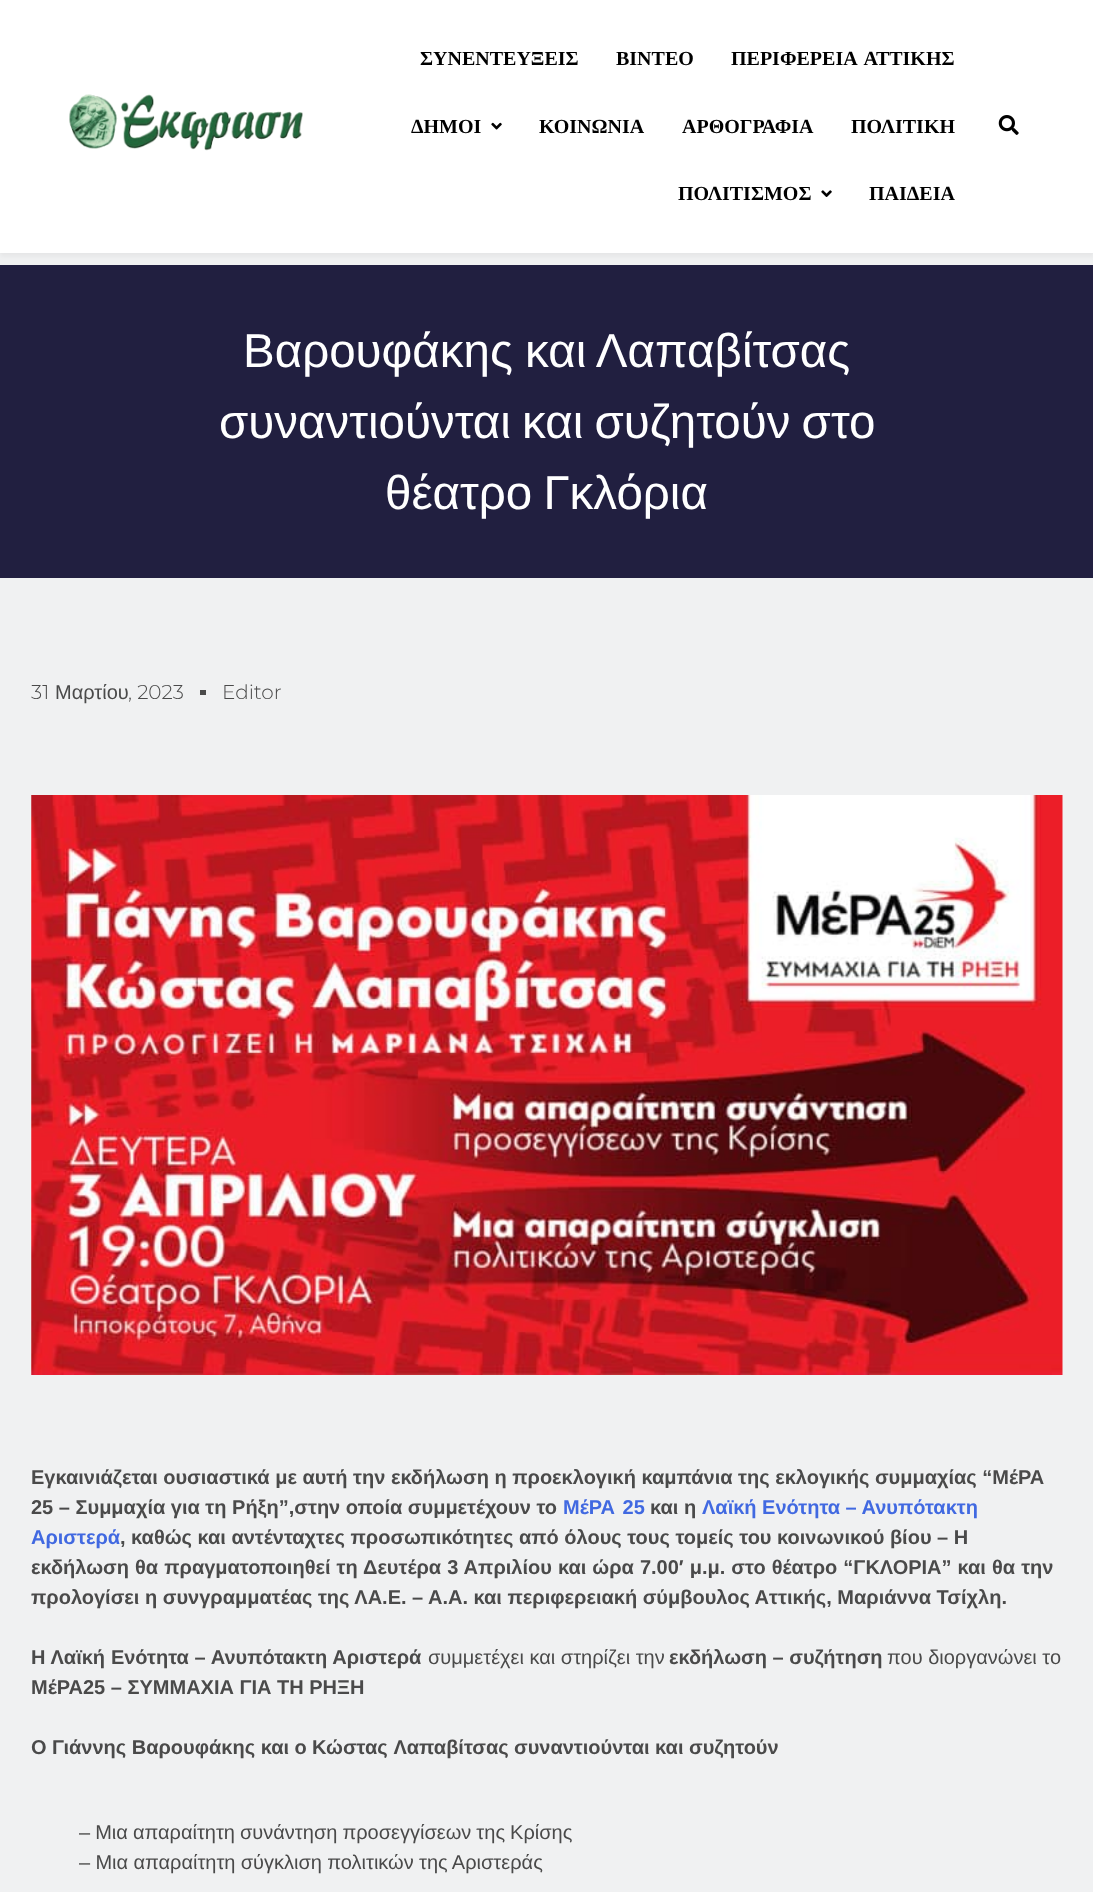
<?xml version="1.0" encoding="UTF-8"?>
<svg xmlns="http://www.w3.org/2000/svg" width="1093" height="1892">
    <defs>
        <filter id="blur1" x="-50%" y="-200%" width="200%" height="500%"><feGaussianBlur stdDeviation="2.5"/></filter>
    </defs>
    <rect width="100%" height="100%" fill="#F0F1F2"/>
    <rect x="0" y="4" width="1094" height="252" fill="#000000" fill-opacity="0.05" filter="url(#blur1)"/>
    <rect x="0" y="0" width="1093" height="253" fill="#FFFFFF"/>
    <image x="69" y="94" width="234" height="57" href="img_01.png"/>
    <text x="420" y="65" font-family="Liberation Serif" font-size="20" font-weight="700" fill="#000000">ΣΥΝΕΝΤΕΥΞΕΙΣ</text>
    <text x="616" y="65" font-family="Liberation Serif" font-size="20" font-weight="700" fill="#000000">ΒΙΝΤΕΟ</text>
    <text x="731" y="65" word-spacing="3" font-family="Liberation Serif" font-size="20" font-weight="700" fill="#000000">ΠΕΡΙΦΕΡΕΙΑ ΑΤΤΙΚΗΣ</text>
    <text x="411" y="133" font-family="Liberation Serif" font-size="20" font-weight="700" fill="#000000">ΔΗΜΟΙ</text>
    <image x="491" y="122" width="11" height="8" href="img_02.png"/>
    <text x="539" y="133" font-family="Liberation Serif" font-size="20" font-weight="700" fill="#000000">ΚΟΙΝΩΝΙΑ</text>
    <text x="682" y="133" font-family="Liberation Serif" font-size="20" font-weight="700" fill="#000000">ΑΡΘΟΓΡΑΦΙΑ</text>
    <text x="851" y="133" font-family="Liberation Serif" font-size="20" font-weight="700" fill="#000000">ΠΟΛΙΤΙΚΗ</text>
    <text x="678" y="200" font-family="Liberation Serif" font-size="20" font-weight="700" fill="#000000">ΠΟΛΙΤΙΣΜΟΣ</text>
    <image x="821" y="190" width="11" height="7" href="img_03.png"/>
    <text x="869" y="200" font-family="Liberation Serif" font-size="20" font-weight="700" fill="#000000">ΠΑΙΔΕΙΑ</text>
    <image x="998" y="115" width="21" height="20" href="img_04.png"/>
    <rect x="0" y="265" width="1093" height="313" fill="#211F40"/>
    <text x="243" y="367" word-spacing="-1" font-family="Liberation Sans" font-size="47.5" fill="#FFFFFF">Βαρουφάκης και Λαπαβίτσας</text>
    <text x="219" y="438" word-spacing="-2" font-family="Liberation Sans" font-size="47.5" fill="#FFFFFF">συναντιούνται και συζητούν στο</text>
    <text x="385" y="509" word-spacing="-2" font-family="Liberation Sans" font-size="47.5" fill="#FFFFFF">θέατρο Γκλόρια</text>
    <text x="31" y="699" font-family="Montserrat" font-size="20" font-weight="300" fill="#4A4A4A">31</text>
    <text x="55" y="699" font-family="Liberation Sans" font-size="20" fill="#4A4A4A">Μαρτίου</text>
    <text x="128" y="699" font-family="Montserrat" font-size="20" font-weight="300" fill="#4A4A4A">, 2023</text>
    <rect x="200" y="690" width="6" height="5" fill="#4A4A4A"/>
    <text x="222" y="699" font-family="Montserrat" font-size="20" font-weight="300" fill="#4A4A4A">Editor</text>
    <image x="31" y="795" width="1032" height="580" href="img_05.png"/>
    <text font-family="Liberation Sans" font-size="20" font-weight="700" fill="#4A4A4A">
        <tspan x="31" y="1484">Εγκαινιάζεται ουσιαστικά με αυτή την εκδήλωση η προεκλογική καμπάνια της εκλογικής συμμαχίας “ΜέΡΑ</tspan>
        <tspan x="31" y="1514">25 – Συμμαχία για τη Ρήξη”,στην οποία συμμετέχουν το</tspan>
    </text>
    <text x="563" y="1514" word-spacing="2" font-family="Liberation Sans" font-size="20" font-weight="700" fill="#4169E1">ΜέΡΑ 25</text>
    <text x="650" y="1514" font-family="Liberation Sans" font-size="20" font-weight="700" fill="#4A4A4A">και η</text>
    <text x="702" y="1514" font-family="Liberation Sans" font-size="20" font-weight="700" fill="#4169E1">Λαϊκή Ενότητα – Ανυπότακτη</text>
    <text x="31" y="1544" font-family="Liberation Sans" font-size="20" font-weight="700" fill="#4169E1">Αριστερά</text>
    <text x="120" y="1544" font-family="Liberation Sans" font-size="20" font-weight="700" fill="#4A4A4A">, καθώς και αντένταχτες προσωπικότητες από όλους τους τομείς του κοινωνικού βίου – Η</text>
    <text font-family="Liberation Sans" font-size="20" font-weight="700" fill="#4A4A4A">
        <tspan x="31" y="1574" word-spacing="0.5">εκδήλωση θα πραγματοποιηθεί τη Δευτέρα 3 Απριλίου και ώρα 7.00′ μ.μ. στο θέατρο “ΓΚΛΟΡΙΑ” και θα την</tspan>
        <tspan x="31" y="1604">προλογίσει η συνγραμματέας της ΛΑ.Ε. – Α.Α. και περιφερειακή σύμβουλος Αττικής, Μαριάννα Τσίχλη.</tspan>
    </text>
    <text x="31" y="1664" word-spacing="0.25" font-family="Liberation Sans" font-size="20" font-weight="700" fill="#4A4A4A">Η Λαϊκή Ενότητα – Ανυπότακτη Αριστερά</text>
    <text x="428" y="1664" font-family="Liberation Sans" font-size="20" fill="#4A4A4A">συμμετέχει και στηρίζει την</text>
    <text x="669" y="1664" font-family="Liberation Sans" font-size="20" font-weight="700" fill="#4A4A4A">εκδήλωση – συζήτηση</text>
    <text x="887" y="1664" font-family="Liberation Sans" font-size="20" fill="#4A4A4A">που διοργανώνει το</text>
    <text x="31" y="1694" font-family="Liberation Sans" font-size="20" font-weight="700" fill="#4A4A4A">ΜέΡΑ25 – ΣΥΜΜΑΧΙΑ ΓΙΑ ΤΗ ΡΗΞΗ</text>
    <text x="31" y="1754" font-family="Liberation Sans" font-size="20" font-weight="700" fill="#4A4A4A">Ο Γιάννης Βαρουφάκης και ο</text>
    <text x="312" y="1754" word-spacing="1" font-family="Liberation Sans" font-size="20" font-weight="700" fill="#4A4A4A">Κώστας Λαπαβίτσας</text>
    <text x="514" y="1754" font-family="Liberation Sans" font-size="20" font-weight="700" fill="#4A4A4A">συναντιούνται και συζητούν</text>
    <text font-family="Liberation Sans" font-size="20" fill="#4A4A4A">
        <tspan x="79" y="1839" word-spacing="-0.5">– Μια απαραίτητη συνάντηση προσεγγίσεων της Κρίσης</tspan>
        <tspan x="79" y="1869" word-spacing="-0.25">– Μια απαραίτητη σύγκλιση πολιτικών της Αριστεράς</tspan>
    </text>
</svg>
